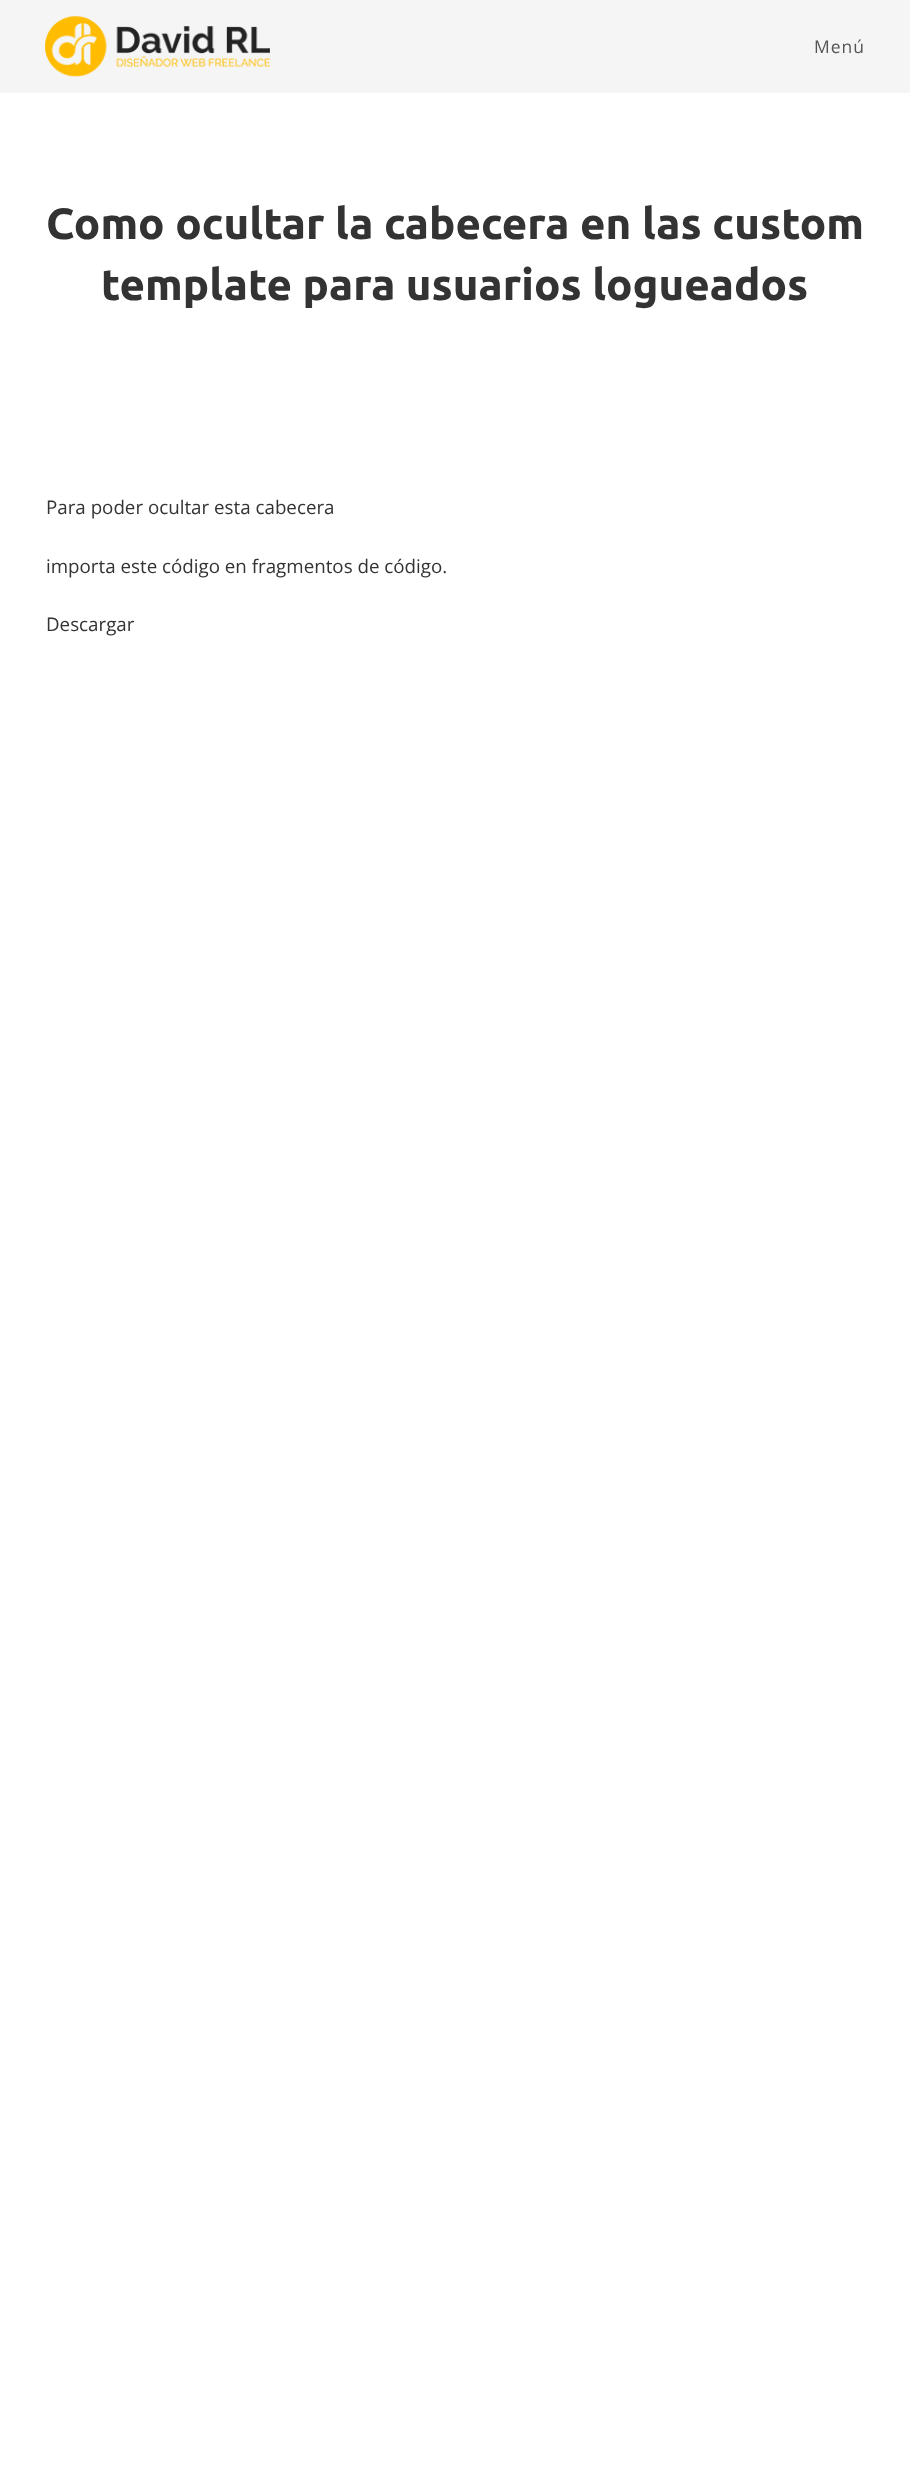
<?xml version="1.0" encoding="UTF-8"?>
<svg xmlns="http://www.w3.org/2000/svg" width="910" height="2467">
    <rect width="100%" height="100%" fill="#FFFFFF"/>
    <rect x="0" y="0" width="910" height="93" fill="#F5F5F5"/>
    <image x="45" y="16" width="225" height="61" href="img_01.png"/>
    <text x="814" y="53" font-family="Open Sans" font-size="17.5" letter-spacing="1" fill="#555555">Menú</text>
    <text x="46" y="239" font-family="Ubuntu" font-size="43.75" font-weight="700" fill="#333333">Como ocultar la cabecera en las custom</text>
    <text x="101" y="300" font-family="Ubuntu" font-size="43.75" font-weight="700" fill="#333333">template para usuarios logueados</text>
    <text x="46" y="514" font-family="Open Sans" font-size="18.75" fill="#333333">Para poder ocultar esta cabecera</text>
    <text x="46" y="573" font-family="Open Sans" font-size="18.75" fill="#333333">importa este código en fragmentos de código.</text>
    <text x="46" y="631" font-family="Open Sans" font-size="18.75" fill="#333333">Descargar</text>
</svg>
